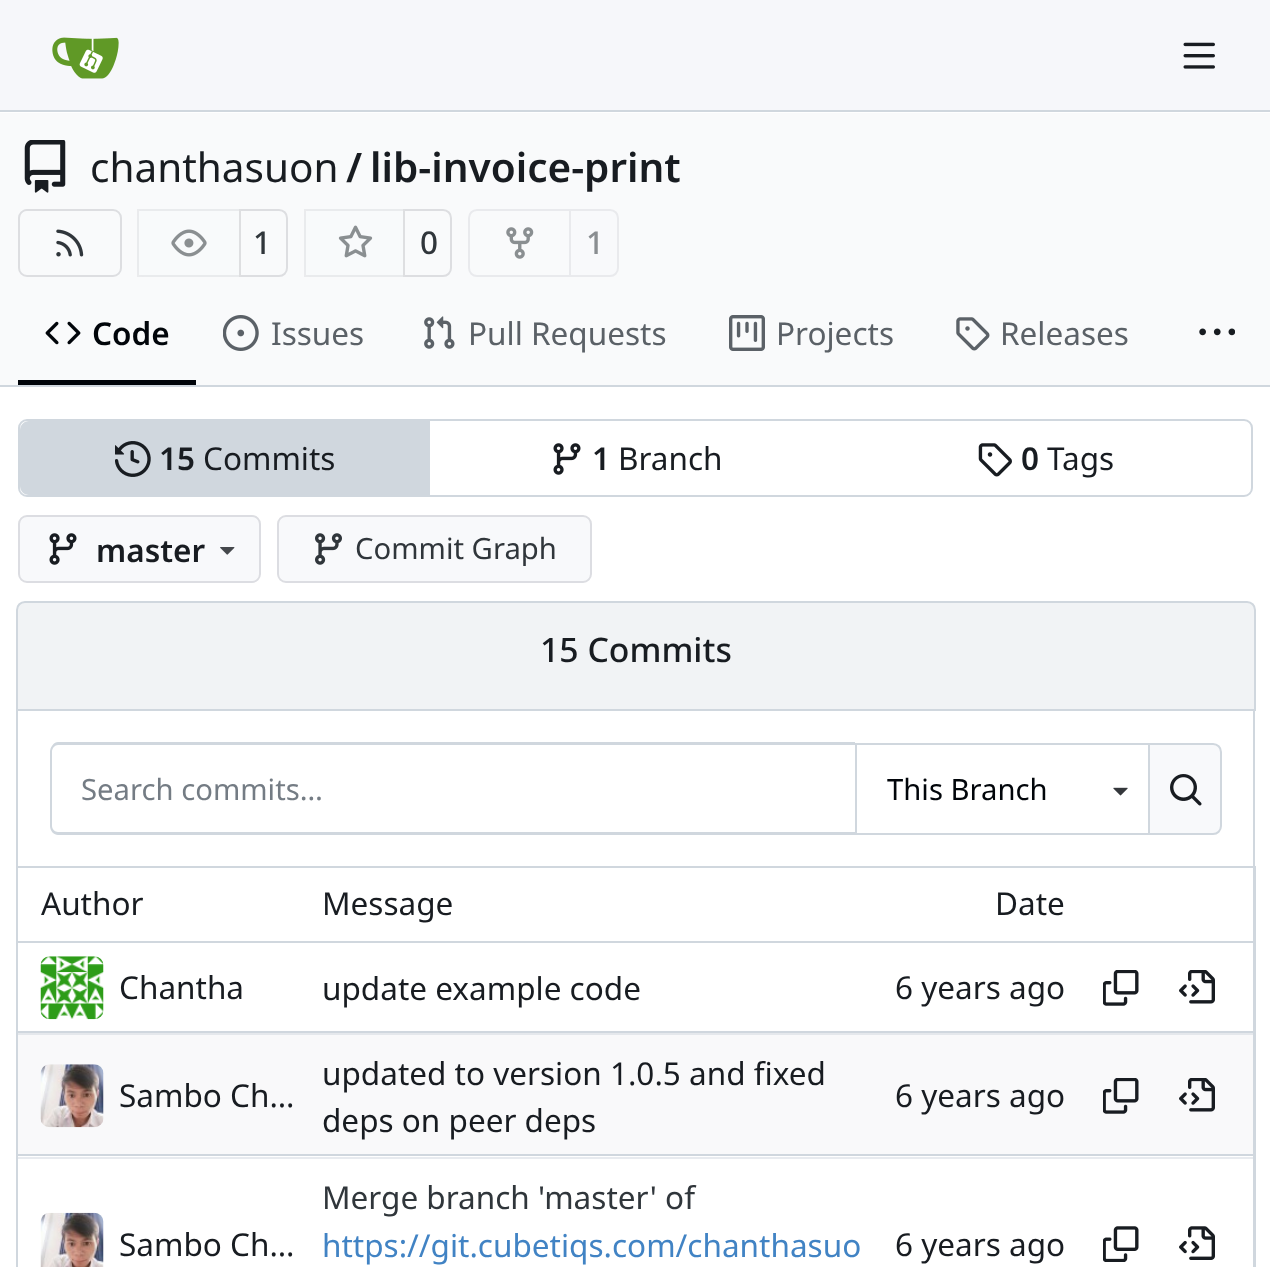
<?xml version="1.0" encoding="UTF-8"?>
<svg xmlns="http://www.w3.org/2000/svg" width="1270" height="1267">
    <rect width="100%" height="100%" fill="#FFFFFF"/>
    <rect x="0" y="0" width="1270" height="110" fill="#F6F7FA"/>
    <rect x="0" y="110" width="1270" height="2" fill="#D0D7DE"/>
    <image x="52" y="37" width="67" height="42" href="img_01.png"/>
    <image x="1183" y="42" width="32" height="27" href="img_02.png"/>
    <rect x="0" y="113" width="1270" height="272" fill="#F9FAFB"/>
    <image x="24" y="140" width="42" height="53" href="img_03.png"/>
    <text x="90" y="182" font-family="Noto Sans" font-size="40.5" fill="#181C21">chanthasuon</text>
    <text x="346" y="182" font-family="Noto Sans" font-size="40.5" font-weight="600" fill="#181C21">/</text>
    <text x="370" y="182" font-family="Noto Sans" font-size="40.5" font-weight="600" fill="#181C21">lib-invoice-print</text>
    <rect x="19" y="210" width="102" height="66" rx="8" fill="none" stroke="#DDDEE1" stroke-width="2"/>
    <image x="56" y="229" width="28" height="28" href="img_04.png"/>
    <path d="M 240 210 H 279 C 283.5 210 287 213.5 287 218 V 268 C 287 272.5 283.5 276 279 276 H 240 Z" fill="none" stroke="#DDDEE1" stroke-width="2"/>
    <path d="M 146 209 H 241 V 277 H 146 C 141 277 137 273 137 268 V 218 C 137 213 141 209 146 209 Z" fill="#F8F9FB" fill-opacity="0.55"/>
    <rect x="138" y="210" width="102" height="66" fill="none" stroke="#000017" stroke-opacity="0.06" stroke-width="2"/>
    <image x="171" y="229" width="36" height="28" href="img_05.png"/>
    <text x="253" y="254" font-family="Noto Sans" font-size="31.5" font-weight="500" fill="#30363B">1</text>
    <path d="M 404 210 H 443 C 447.5 210 451 213.5 451 218 V 268 C 451 272.5 447.5 276 443 276 H 404 Z" fill="none" stroke="#DDDEE1" stroke-width="2"/>
    <path d="M 313 209 H 405 V 277 H 313 C 308 277 304 273 304 268 V 218 C 304 213 308 209 313 209 Z" fill="#F8F9FB" fill-opacity="0.55"/>
    <rect x="305" y="210" width="99" height="66" fill="none" stroke="#000017" stroke-opacity="0.06" stroke-width="2"/>
    <image x="338" y="225" width="35" height="33" href="img_06.png"/>
    <text x="420" y="254" font-family="Noto Sans" font-size="31.5" font-weight="500" fill="#30363B">0</text>
    <path d="M 477 210 H 571 V 276 H 477 C 472.5 276 469 272.5 469 268 V 218 C 469 213.5 472.5 210 477 210 Z" fill="none" stroke="#E9EAED" stroke-width="2"/>
    <image x="506" y="227" width="28" height="32" href="img_07.png"/>
    <path d="M 570 210 H 610 C 614.5 210 618 213.5 618 218 V 268 C 618 272.5 614.5 276 610 276 H 570 Z" fill="#F8F9FB" stroke="#E9EAED" stroke-width="2"/>
    <text x="586" y="254" font-family="Noto Sans" font-size="31.5" font-weight="500" fill="#8A8E91">1</text>
    <rect x="18" y="380" width="178" height="5" fill="#01050A"/>
    <image x="45" y="321" width="36" height="24" href="img_08.png"/>
    <text x="92" y="345" font-family="Noto Sans" font-size="31.5" font-weight="600" fill="#01050A">Code</text>
    <image x="223" y="315" width="36" height="36" href="img_09.png"/>
    <text x="271" y="345" font-family="Noto Sans" font-size="31.5" fill="#5B6167">Issues</text>
    <image x="424" y="316" width="31" height="33" href="img_10.png"/>
    <text x="468" y="345" font-family="Noto Sans" font-size="31.5" fill="#5B6167">Pull Requests</text>
    <image x="729" y="315" width="36" height="36" href="img_11.png"/>
    <text x="776" y="345" font-family="Noto Sans" font-size="31.5" fill="#5B6167">Projects</text>
    <image x="956" y="317" width="34" height="34" href="img_12.png"/>
    <text x="1000" y="345" font-family="Noto Sans" font-size="31.5" fill="#5B6167">Releases</text>
    <image x="1199" y="328" width="36" height="8" href="img_13.png"/>
    <rect x="0" y="385" width="1270" height="2" fill="#D0D7DE"/>
    <rect x="19" y="420" width="1233" height="76" rx="8" fill="none" stroke="#D0D7DE" stroke-width="2"/>
    <path d="M 29 421 H 430 V 495 H 29 C 24 495 20 491 20 486 V 430 C 20 425 24 421 29 421 Z" fill="#D0D7DE"/>
    <image x="115" y="441" width="36" height="36" href="img_14.png"/>
    <text x="159" y="470" font-family="Noto Sans" font-size="31.5" font-weight="600" fill="#181C21">15</text>
    <text x="203" y="470" font-family="Noto Sans" font-size="31.5" fill="#181C21">Commits</text>
    <image x="553" y="443" width="28" height="32" href="img_15.png"/>
    <text x="592" y="470" font-family="Noto Sans" font-size="31.5" font-weight="600" fill="#181C21">1</text>
    <text x="618" y="470" font-family="Noto Sans" font-size="31.5" fill="#181C21">Branch</text>
    <image x="978" y="443" width="34" height="34" href="img_16.png"/>
    <text x="1021" y="470" font-family="Noto Sans" font-size="31.5" font-weight="600" fill="#181C21">0</text>
    <text x="1047" y="470" font-family="Noto Sans" font-size="31.5" fill="#181C21">Tags</text>
    <rect x="18" y="515" width="243" height="68" rx="9" fill="#F8F9FB"/>
    <rect x="19" y="516" width="241" height="66" rx="8" fill="none" stroke="#000017" stroke-opacity="0.11" stroke-width="2"/>
    <image x="49" y="533" width="28" height="32" href="img_17.png"/>
    <text x="96" y="562" font-family="Noto Sans" font-size="31.5" font-weight="600" fill="#181C21">master</text>
    <image x="220" y="547" width="15" height="8" href="img_18.png"/>
    <rect x="277" y="515" width="315" height="68" rx="9" fill="#F8F9FB"/>
    <rect x="278" y="516" width="313" height="66" rx="8" fill="none" stroke="#000017" stroke-opacity="0.11" stroke-width="2"/>
    <image x="315" y="533" width="27" height="32" href="img_19.png"/>
    <text x="355" y="559" font-family="Noto Sans" font-size="29.25" fill="#30363B">Commit Graph</text>
    <path d="M 25 602 H 1247 C 1251.5 602 1255 605.5 1255 610 V 710 H 17 V 610 C 17 605.5 20.5 602 25 602 Z" fill="#F1F3F5" stroke="#D0D7DE" stroke-width="2"/>
    <text x="540" y="662" font-family="Noto Sans" font-size="33.75" font-weight="500" fill="#181C21">15 Commits</text>
    <rect x="1253" y="711" width="2" height="158" fill="#D0D7DE"/>
    <rect x="16" y="866" width="1240" height="2" fill="#D0D7DE"/>
    <rect x="16" y="711" width="2" height="158" fill="#D0D7DE"/>
    <path d="M 58 742 H 855 V 835 H 58 C 54 835 50 831 50 826 V 752 C 50 747 54 742 58 742 Z M 58 745 H 855 V 832 H 58 C 55 832 52 829 52 826 V 752 C 52 748 55 745 58 745 Z" fill="#D0D7DE" fill-rule="evenodd"/>
    <text x="81" y="800" font-family="Noto Sans" font-size="29.25" fill="#747C84">Search commits…</text>
    <rect x="855" y="743" width="293" height="2" fill="#D0D7DE"/>
    <rect x="855" y="833" width="293" height="2" fill="#D0D7DE"/>
    <rect x="855" y="743" width="2" height="92" fill="#D0D7DE"/>
    <text x="887" y="800" font-family="Noto Sans" font-size="29.25" fill="#01050A">This Branch</text>
    <image x="1113" y="787" width="15" height="9" href="img_20.png"/>
    <path d="M 1149 744 H 1213 C 1217.5 744 1221 747.5 1221 752 V 826 C 1221 830.5 1217.5 834 1213 834 H 1149 Z" fill="#F8F9FB" stroke="#D0D7DE" stroke-width="2"/>
    <image x="1170" y="774" width="32" height="32" href="img_21.png"/>
    <path d="M 16 868 H 1256 V 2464 C 1256 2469 1251 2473 1246 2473 H 25 C 20 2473 16 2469 16 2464 Z M 18 868 H 1253 V 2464 C 1253 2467 1250 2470 1246 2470 H 25 C 21 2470 18 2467 18 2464 Z" fill="#D0D7DE" fill-rule="evenodd"/>
    <rect x="18" y="941" width="1235" height="2" fill="#D0D7DE"/>
    <text x="41" y="915" font-family="Noto Sans" font-size="31.5" fill="#181C21">Author</text>
    <text x="322" y="915" font-family="Noto Sans" font-size="31.5" fill="#181C21">Message</text>
    <text x="995" y="915" font-family="Noto Sans" font-size="31.5" fill="#181C21">Date</text>
    <rect x="18" y="1031" width="1235" height="2" fill="#D0D7DE"/>
    <image x="40" y="956" width="64" height="64" href="img_22.png"/>
    <text x="119" y="999" font-family="Noto Sans" font-size="31.5" fill="#181C21">Chantha</text>
    <text x="322" y="1000" font-family="Noto Sans" font-size="31.5" fill="#181C21">update example code</text>
    <text x="895" y="999" font-family="Noto Sans" font-size="31.5" fill="#181C21">6 years ago</text>
    <image x="1103" y="970" width="36" height="36" href="img_23.png"/>
    <image x="1179" y="970" width="36" height="34" href="img_24.png"/>
    <rect x="18" y="1035" width="1235" height="119" fill="#F9F9FA"/>
    <rect x="18" y="1154" width="1235" height="2" fill="#D0D7DE"/>
    <rect x="18" y="1033" width="1235" height="2" fill="#E5E8EC"/>
    <image x="40" y="1064" width="64" height="64" href="img_25.png"/>
    <text x="119" y="1107" font-family="Noto Sans" font-size="31.5" fill="#181C21">Sambo Ch…</text>
    <text font-family="Noto Sans" font-size="31.5" fill="#181C21">
        <tspan x="322" y="1085">updated to version 1.0.5 and fixed</tspan>
        <tspan x="322" y="1132">deps on peer deps</tspan>
    </text>
    <text x="895" y="1107" font-family="Noto Sans" font-size="31.5" fill="#181C21">6 years ago</text>
    <image x="1103" y="1078" width="36" height="36" href="img_26.png"/>
    <image x="1179" y="1078" width="36" height="34" href="img_27.png"/>
    <rect x="18" y="1157" width="1235" height="2" fill="#E8EBEF"/>
    <image x="40" y="1212" width="64" height="55" href="img_28.png"/>
    <text x="119" y="1256" font-family="Noto Sans" font-size="31.5" fill="#181C21">Sambo Ch…</text>
    <text x="322" y="1209" font-family="Noto Sans" font-size="31.5" fill="#30363B">Merge branch 'master' of</text>
    <text x="322" y="1257" font-family="Noto Sans" font-size="31.5" fill="#4183C4">https://git.cubetiqs.com/chanthasuo</text>
    <text x="895" y="1256" font-family="Noto Sans" font-size="31.5" fill="#181C21">6 years ago</text>
    <image x="1103" y="1226" width="36" height="36" href="img_29.png"/>
    <image x="1179" y="1226" width="36" height="34" href="img_30.png"/>
</svg>
